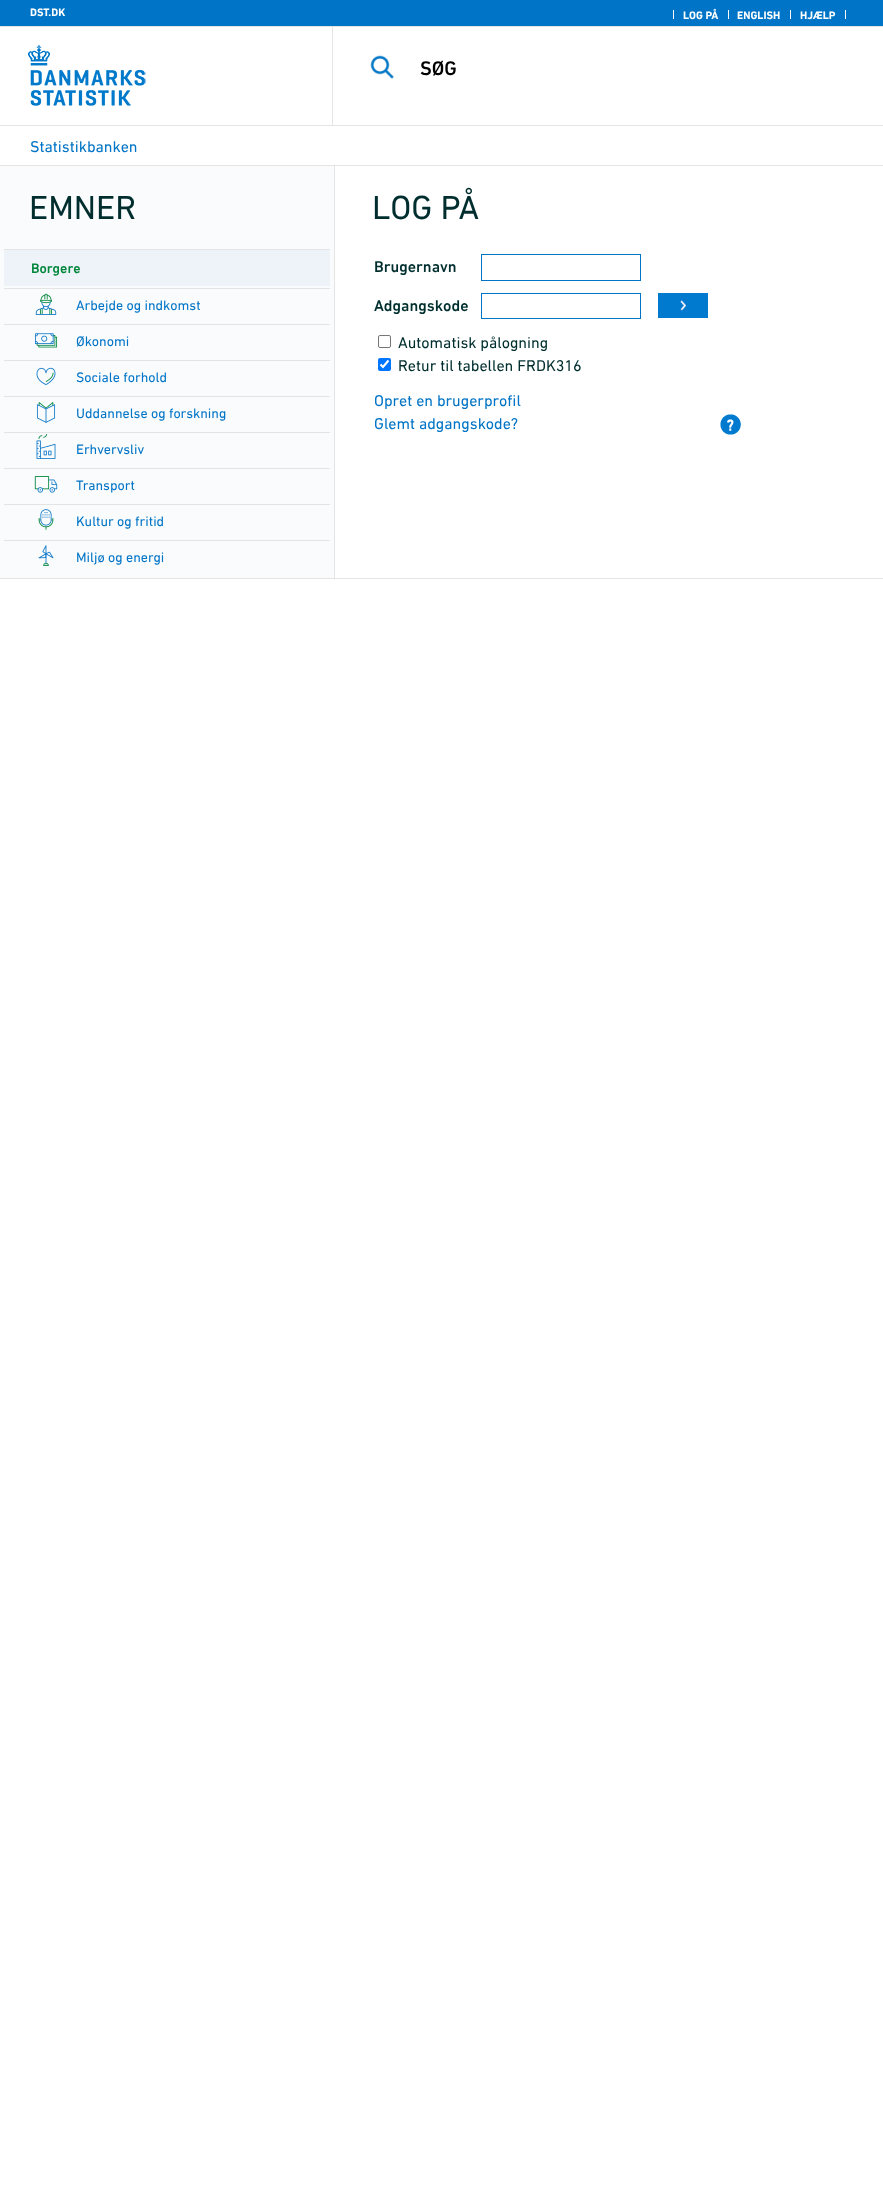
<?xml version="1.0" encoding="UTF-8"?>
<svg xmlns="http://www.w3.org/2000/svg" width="883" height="2203">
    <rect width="100%" height="100%" fill="#FFFFFF"/>
    <rect x="0" y="0" width="883" height="26" fill="#0074C6"/>
    <rect x="0" y="26" width="883" height="1" fill="#E4E4E4"/>
    <text x="30" y="16" font-family="DIN Next" font-size="11" font-weight="700" fill="#FFFFFF">DST.DK</text>
    <image x="28" y="27" width="305" height="98" href="img_01.png"/>
    <rect x="0" y="125" width="883" height="1" fill="#E4E4E4"/>
    <rect x="673" y="10" width="1" height="9" fill="#FFFFFF"/>
    <text x="683" y="19" font-family="DIN Next" font-size="11" font-weight="700" fill="#FFFFFF">LOG PÅ</text>
    <rect x="728" y="10" width="1" height="9" fill="#FFFFFF"/>
    <text x="737" y="19" font-family="DIN Next" font-size="11" font-weight="700" fill="#FFFFFF">ENGLISH</text>
    <rect x="790" y="10" width="1" height="9" fill="#FFFFFF"/>
    <text x="800" y="19" font-family="DIN Next" font-size="11" font-weight="700" fill="#FFFFFF">HJÆLP</text>
    <rect x="845" y="10" width="1" height="9" fill="#FFFFFF"/>
    <image x="370" y="55" width="24" height="24" href="img_02.png"/>
    <text x="420" y="75" font-family="DIN Next" font-size="20" font-weight="500" fill="#000000">SØG</text>
    <rect x="0" y="165" width="883" height="1" fill="#E4E4E4"/>
    <text x="30" y="152" font-family="DIN Next" font-size="16" fill="#0074C6">Statistikbanken</text>
    <rect x="0" y="578" width="883" height="1" fill="#E4E4E4"/>
    <rect x="0" y="166" width="334" height="412" fill="#F9FBFD"/>
    <rect x="334" y="166" width="1" height="413" fill="#E4E4E4"/>
    <text x="29" y="219" font-family="DIN Next" font-size="34" fill="#002E2E">EMNER</text>
    <rect x="4" y="250" width="326" height="36" fill="#EEF3FA"/>
    <rect x="4" y="249" width="326" height="1" fill="#E4E4E4"/>
    <text x="31" y="273" font-family="DIN Next" font-size="14" font-weight="500" fill="#00863B">Borgere</text>
    <rect x="4" y="288" width="326" height="1" fill="#E4E4E4"/>
    <image x="35" y="293" width="22" height="22" href="img_03.png"/>
    <text x="76" y="310" font-family="DIN Next" font-size="14" fill="#0074C6">Arbejde og indkomst</text>
    <rect x="4" y="324" width="326" height="1" fill="#E4E4E4"/>
    <image x="34" y="333" width="24" height="15" href="img_04.png"/>
    <text x="76" y="346" font-family="DIN Next" font-size="14" fill="#0074C6">Økonomi</text>
    <rect x="4" y="360" width="326" height="1" fill="#E4E4E4"/>
    <image x="36" y="367" width="20" height="18" href="img_05.png"/>
    <text x="76" y="382" font-family="DIN Next" font-size="14" fill="#0074C6">Sociale forhold</text>
    <rect x="4" y="396" width="326" height="1" fill="#E4E4E4"/>
    <image x="36" y="402" width="20" height="21" href="img_06.png"/>
    <text x="76" y="418" font-family="DIN Next" font-size="14" fill="#0074C6">Uddannelse og forskning</text>
    <rect x="4" y="432" width="326" height="1" fill="#E4E4E4"/>
    <image x="36" y="434" width="20" height="25" href="img_07.png"/>
    <text x="76" y="454" font-family="DIN Next" font-size="14" fill="#0074C6">Erhvervsliv</text>
    <rect x="4" y="468" width="326" height="1" fill="#E4E4E4"/>
    <image x="34" y="476" width="24" height="17" href="img_08.png"/>
    <text x="76" y="490" font-family="DIN Next" font-size="14" fill="#0074C6">Transport</text>
    <rect x="4" y="504" width="326" height="1" fill="#E4E4E4"/>
    <image x="38" y="509" width="16" height="21" href="img_09.png"/>
    <text x="76" y="526" font-family="DIN Next" font-size="14" fill="#0074C6">Kultur og fritid</text>
    <rect x="4" y="540" width="326" height="1" fill="#E4E4E4"/>
    <image x="38" y="545" width="16" height="21" href="img_10.png"/>
    <text x="76" y="562" font-family="DIN Next" font-size="14" fill="#0074C6">Miljø og energi</text>
    <text x="372" y="219" font-family="DIN Next" font-size="34" fill="#002E2E">LOG PÅ</text>
    <text x="374" y="272" font-family="DIN Next" font-size="16" font-weight="500" fill="#002E2E">Brugernavn</text>
    <rect x="481.5" y="254.5" width="159" height="26" fill="none" stroke="#0074C6"/>
    <text x="374" y="311" font-family="DIN Next" font-size="16" font-weight="500" fill="#002E2E">Adgangskode</text>
    <rect x="481.5" y="293.5" width="159" height="25" fill="none" stroke="#0074C6"/>
    <image x="658" y="293" width="50" height="25" href="img_11.png"/>
    <rect x="378.5" y="335.5" width="12" height="12" rx="1.5" fill="none" stroke="#767676"/>
    <text x="398" y="348" font-family="DIN Next" font-size="16" fill="#002E2E">Automatisk pålogning</text>
    <rect x="378" y="358" width="13" height="13" rx="2" fill="#0075FF"/>
    <path d="M 380.5 364.5 L 383 367 L 388.5 360.5" fill="none" stroke="#FFFFFF" stroke-width="2.1"/>
    <text x="398" y="371" font-family="DIN Next" font-size="16" fill="#002E2E">Retur til tabellen FRDK316</text>
    <text font-family="DIN Next" font-size="16" fill="#0074C6">
        <tspan x="374" y="406">Opret en brugerprofil</tspan>
        <tspan x="374" y="429">Glemt adgangskode?</tspan>
    </text>
    <image x="720" y="414" width="21" height="21" href="img_12.png"/>
</svg>
